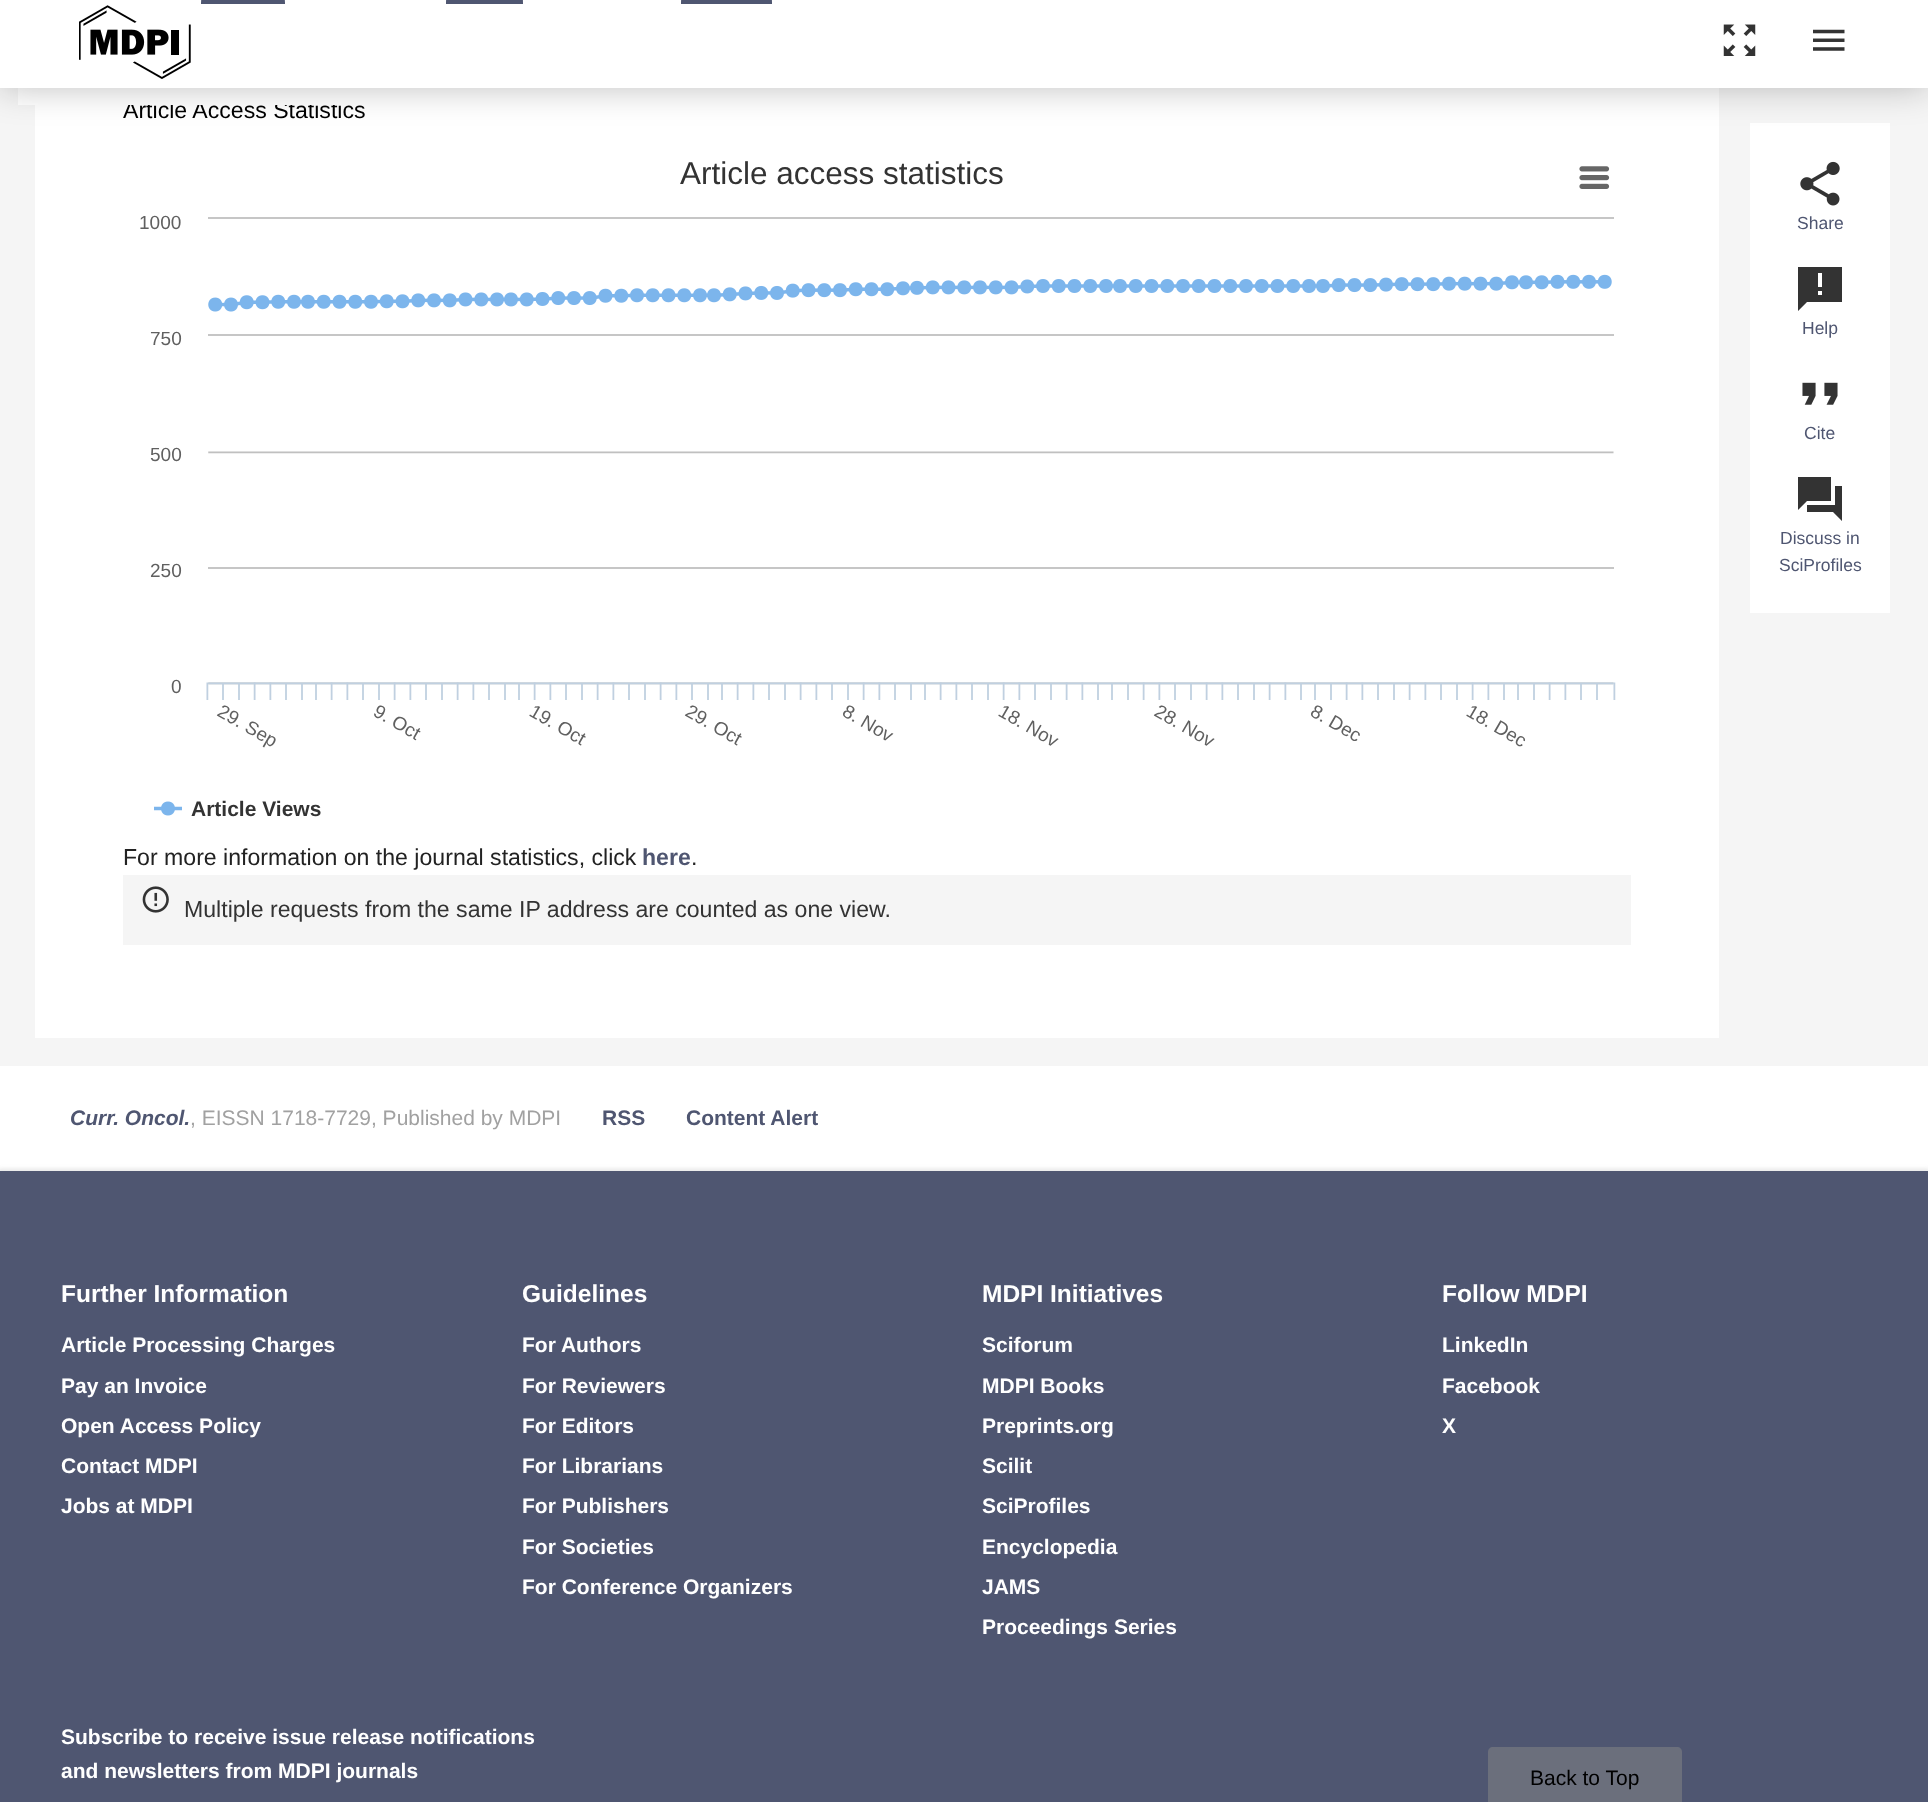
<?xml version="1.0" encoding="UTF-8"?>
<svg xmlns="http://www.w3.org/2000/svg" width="1928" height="1802">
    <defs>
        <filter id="blur1" x="-50%" y="-200%" width="200%" height="500%"><feGaussianBlur stdDeviation="17.5"/></filter>
        <filter id="blur2" x="-50%" y="-200%" width="200%" height="500%"><feGaussianBlur stdDeviation="2"/></filter>
    </defs>
    <rect width="100%" height="100%" fill="#F5F5F5"/>
    <rect x="35" y="88" width="1684" height="950" fill="#FFFFFF"/>
    <text x="123" y="118" font-family="Liberation Sans" font-size="23.1" fill="#000000">Article Access Statistics</text>
    <rect x="18" y="88" width="323" height="17" fill="#FFFFFF"/>
    <rect x="1750" y="123" width="140" height="490" fill="#FFFFFF"/>
    <rect x="0" y="0" width="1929" height="88" fill="#000000" fill-opacity="0.25" filter="url(#blur1)"/>
    <rect x="0" y="0" width="1928" height="88" fill="#FFFFFF"/>
    <image x="79" y="5" width="112" height="74" href="img_01.png"/>
    <image x="1723" y="24" width="33" height="32" href="img_02.png"/>
    <image x="1813" y="29" width="32" height="22" href="img_03.png"/>
    <path d="M 243 -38 C 266 -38 285 -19 285 4 H 201 C 201 -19 220 -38 243 -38 Z" fill="#4F5671"/>
    <path d="M 484.5 -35 C 506 -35 523 -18 523 3.5 V 4 H 446 V 3.5 C 446 -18 463 -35 484.5 -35 Z" fill="#4F5671"/>
    <path d="M 726.5 -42 C 751.5 -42 772 -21.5 772 3.5 V 4 H 681 V 3.5 C 681 -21.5 701.5 -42 726.5 -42 Z" fill="#4F5671"/>
    <image x="154" y="166" width="1462" height="650" href="img_04.png"/>
    <text x="680" y="184" font-family="Liberation Sans" font-size="31.5" fill="#333333">Article access statistics</text>
    <text x="139" y="229" font-family="Liberation Sans" font-size="19" fill="#606060">1000</text>
    <text x="150" y="345" font-family="Liberation Sans" font-size="19" fill="#606060">750</text>
    <text x="150" y="461" font-family="Liberation Sans" font-size="19" fill="#606060">500</text>
    <text x="150" y="577" font-family="Liberation Sans" font-size="19" fill="#606060">250</text>
    <text x="171" y="693" font-family="Liberation Sans" font-size="19" fill="#606060">0</text>
    <text x="216" y="715" transform="rotate(30 216 715)" font-family="Liberation Sans" font-size="19" fill="#606060">29. Sep</text>
    <text x="372" y="715" transform="rotate(30 372 715)" font-family="Liberation Sans" font-size="19" fill="#606060">9. Oct</text>
    <text x="528" y="715" transform="rotate(30 528 715)" font-family="Liberation Sans" font-size="19" fill="#606060">19. Oct</text>
    <text x="684" y="715" transform="rotate(30 684 715)" font-family="Liberation Sans" font-size="19" fill="#606060">29. Oct</text>
    <text x="841" y="715" transform="rotate(30 841 715)" font-family="Liberation Sans" font-size="19" fill="#606060">8. Nov</text>
    <text x="997" y="715" transform="rotate(30 997 715)" font-family="Liberation Sans" font-size="19" fill="#606060">18. Nov</text>
    <text x="1153" y="715" transform="rotate(30 1153 715)" font-family="Liberation Sans" font-size="19" fill="#606060">28. Nov</text>
    <text x="1309" y="715" transform="rotate(30 1309 715)" font-family="Liberation Sans" font-size="19" fill="#606060">8. Dec</text>
    <text x="1465" y="715" transform="rotate(30 1465 715)" font-family="Liberation Sans" font-size="19" fill="#606060">18. Dec</text>
    <text x="191" y="816" font-family="Liberation Sans" font-size="21" font-weight="700" fill="#333333">Article Views</text>
    <text x="123" y="865" font-family="Liberation Sans" font-size="23.1" fill="#222222">For more information on the journal statistics, click</text>
    <text x="642" y="865" font-family="Liberation Sans" font-size="23.1" font-weight="700" fill="#4F5671">here</text>
    <text x="691" y="865" font-family="Liberation Sans" font-size="23.1" fill="#222222">.</text>
    <rect x="123" y="875" width="1508" height="70" fill="#F5F5F5"/>
    <image x="142" y="886" width="27" height="27" href="img_05.png"/>
    <text x="184" y="917" font-family="Liberation Sans" font-size="23.1" fill="#333333">Multiple requests from the same IP address are counted as one view.</text>
    <image x="1800" y="161" width="40" height="45" href="img_06.png"/>
    <text x="1797" y="229" font-family="Liberation Sans" font-size="17.5" fill="#4F5671">Share</text>
    <path d="M 1842 267 H 1798 V 311 L 1807 302 H 1842 Z M 1822 287 H 1818 V 273 H 1822 Z M 1822 295 H 1818 V 291 H 1822 Z" fill="#333333"/>
    <text x="1802" y="334" font-family="Liberation Sans" font-size="17.5" fill="#4F5671">Help</text>
    <image x="1802" y="382" width="36" height="23" href="img_07.png"/>
    <text x="1804" y="439" font-family="Liberation Sans" font-size="17.5" fill="#4F5671">Cite</text>
    <path d="M 1842 486 H 1835 V 505 H 1807 V 512 H 1833 L 1842 521 Z M 1831 501 V 477 H 1798 V 510 L 1807 501 Z" fill="#333333"/>
    <text x="1780" y="544" font-family="Liberation Sans" font-size="17.5" fill="#4F5671">Discuss in</text>
    <text x="1779" y="571" font-family="Liberation Sans" font-size="17.5" fill="#4F5671">SciProfiles</text>
    <rect x="0" y="1066" width="1928" height="105" fill="#FFFFFF"/>
    <text x="70" y="1125" font-family="Liberation Sans" font-size="21" font-weight="700" font-style="italic" fill="#4F5671">Curr. Oncol.</text>
    <text x="190" y="1125" font-family="Liberation Sans" font-size="21" fill="#A1A1A1">, EISSN 1718-7729, Published by MDPI</text>
    <text x="602" y="1125" font-family="Liberation Sans" font-size="21" font-weight="700" fill="#4F5671">RSS</text>
    <text x="686" y="1125" font-family="Liberation Sans" font-size="21" font-weight="700" fill="#4F5671">Content Alert</text>
    <rect x="-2" y="1169" width="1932" height="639" fill="#CCCCCC" fill-opacity="0.5" filter="url(#blur2)"/>
    <rect x="0" y="1171" width="1928" height="631" fill="#4F5671"/>
    <text x="61" y="1302" font-family="Liberation Sans" font-size="24.5" font-weight="700" fill="#FFFFFF">Further Information</text>
    <text font-family="Liberation Sans" font-size="21" font-weight="700" fill="#FFFFFF">
        <tspan x="61" y="1352">Article Processing Charges</tspan>
        <tspan x="61" y="1393">Pay an Invoice</tspan>
        <tspan x="61" y="1433">Open Access Policy</tspan>
        <tspan x="61" y="1473">Contact MDPI</tspan>
        <tspan x="61" y="1513">Jobs at MDPI</tspan>
    </text>
    <text x="522" y="1302" font-family="Liberation Sans" font-size="24.5" font-weight="700" fill="#FFFFFF">Guidelines</text>
    <text font-family="Liberation Sans" font-size="21" font-weight="700" fill="#FFFFFF">
        <tspan x="522" y="1352">For Authors</tspan>
        <tspan x="522" y="1393">For Reviewers</tspan>
        <tspan x="522" y="1433">For Editors</tspan>
        <tspan x="522" y="1473">For Librarians</tspan>
        <tspan x="522" y="1513">For Publishers</tspan>
        <tspan x="522" y="1554">For Societies</tspan>
        <tspan x="522" y="1594">For Conference Organizers</tspan>
    </text>
    <text x="982" y="1302" font-family="Liberation Sans" font-size="24.5" font-weight="700" fill="#FFFFFF">MDPI Initiatives</text>
    <text font-family="Liberation Sans" font-size="21" font-weight="700" fill="#FFFFFF">
        <tspan x="982" y="1352">Sciforum</tspan>
        <tspan x="982" y="1393">MDPI Books</tspan>
        <tspan x="982" y="1433">Preprints.org</tspan>
        <tspan x="982" y="1473">Scilit</tspan>
        <tspan x="982" y="1513">SciProfiles</tspan>
        <tspan x="982" y="1554">Encyclopedia</tspan>
        <tspan x="982" y="1594">JAMS</tspan>
        <tspan x="982" y="1634">Proceedings Series</tspan>
    </text>
    <text x="1442" y="1302" font-family="Liberation Sans" font-size="24.5" font-weight="700" fill="#FFFFFF">Follow MDPI</text>
    <text font-family="Liberation Sans" font-size="21" font-weight="700" fill="#FFFFFF">
        <tspan x="1442" y="1352">LinkedIn</tspan>
        <tspan x="1442" y="1393">Facebook</tspan>
        <tspan x="1442" y="1433">X</tspan>
    </text>
    <text font-family="Liberation Sans" font-size="21" font-weight="700" fill="#FFFFFF">
        <tspan x="61" y="1744">Subscribe to receive issue release notifications</tspan>
        <tspan x="61" y="1778">and newsletters from MDPI journals</tspan>
    </text>
    <path d="M 1493 1747 H 1677 C 1680 1747 1682 1749 1682 1752 V 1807 H 1488 V 1752 C 1488 1749 1490 1747 1493 1747 Z" fill="#6B6F7C"/>
    <text x="1530" y="1785" font-family="Liberation Sans" font-size="21" fill="#000000">Back to Top</text>
</svg>
